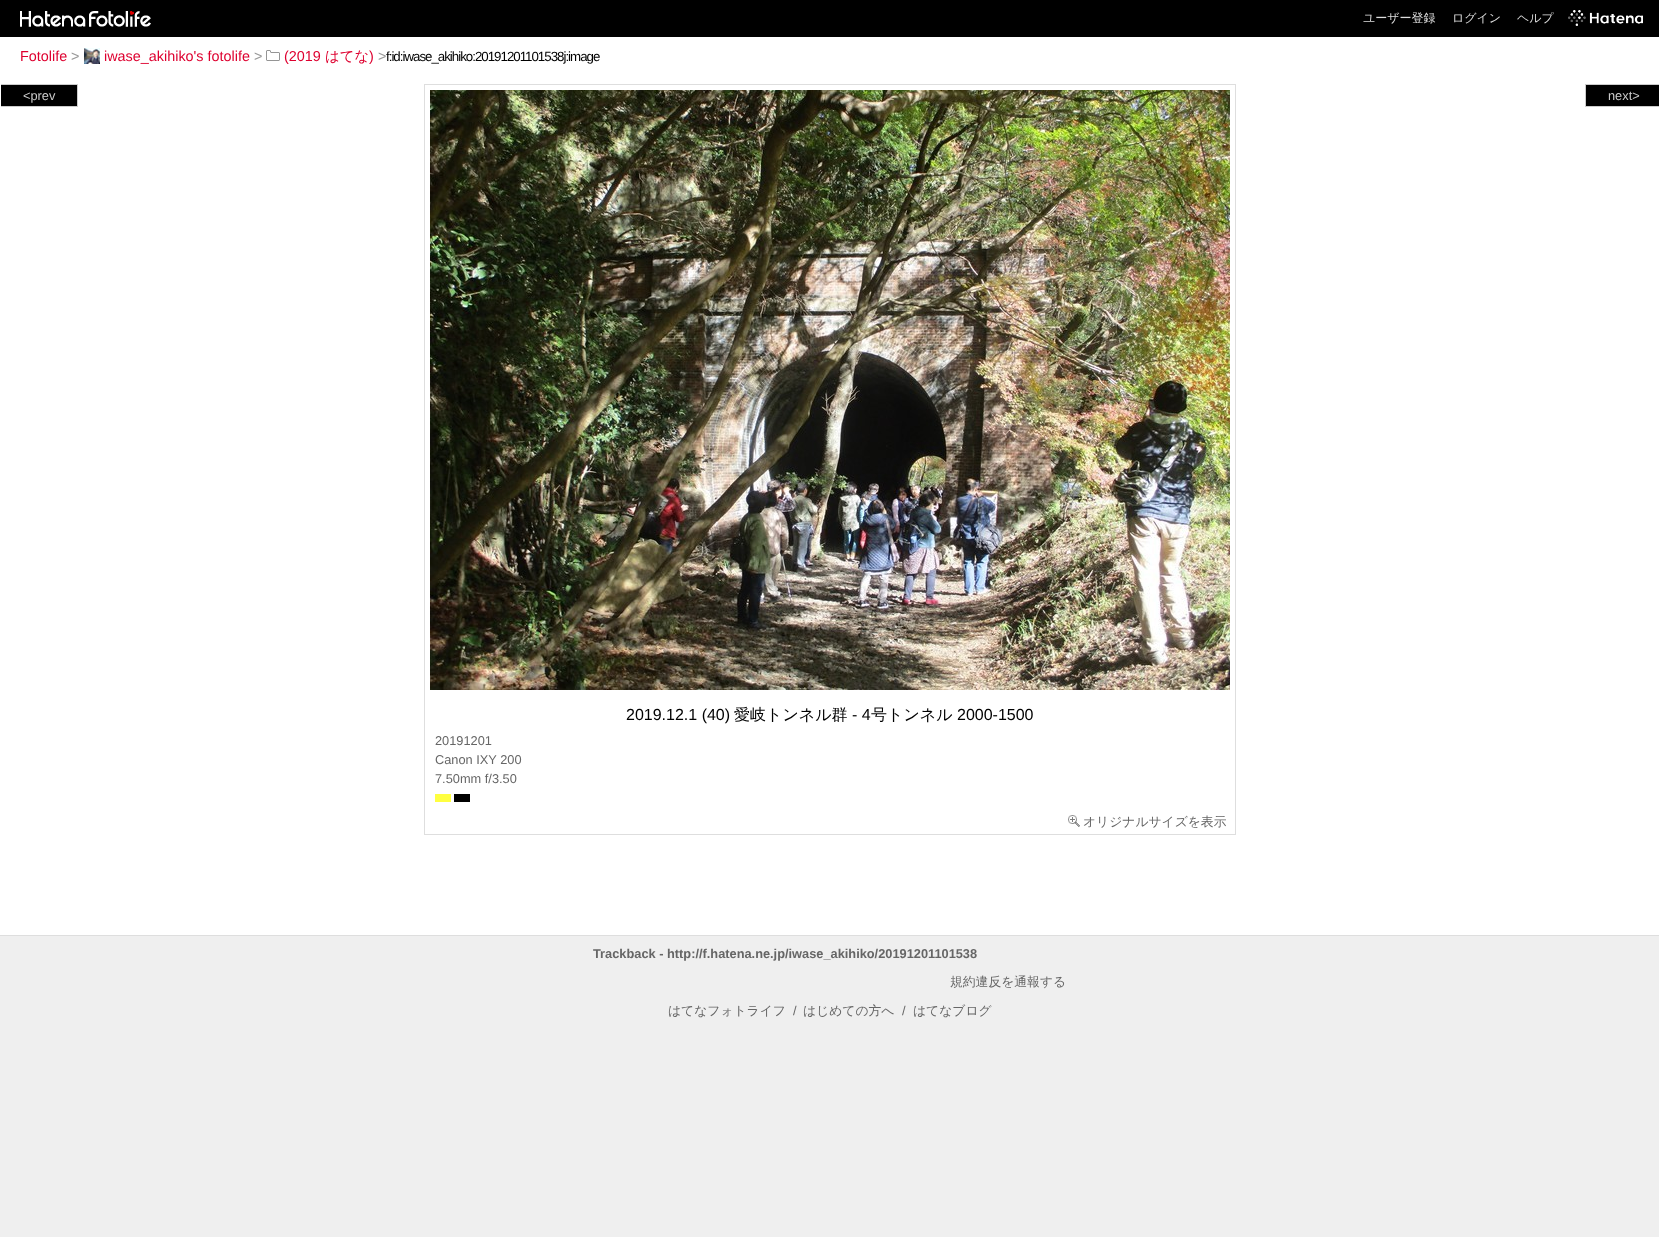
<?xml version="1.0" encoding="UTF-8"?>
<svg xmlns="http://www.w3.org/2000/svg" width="1659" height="1237">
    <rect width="100%" height="100%" fill="#EFEFEF"/>
    <rect x="0" y="0" width="1659" height="37" fill="#000000"/>
    <image x="20" y="11" width="66" height="16" href="img_01.png"/>
    <image x="89" y="11" width="62" height="16" href="img_02.png"/>
    <text x="1363" y="22" font-family="WenQuanYi Zen Hei" font-size="12" font-weight="500" fill="#DDDDDD">ユーザー登録</text>
    <text x="1452" y="22" font-family="WenQuanYi Zen Hei" font-size="12" font-weight="500" fill="#DDDDDD">ログイン</text>
    <text x="1517" y="22" font-family="WenQuanYi Zen Hei" font-size="12" font-weight="500" fill="#DDDDDD">ヘルプ</text>
    <image x="1568" y="10" width="75" height="16" href="img_03.png"/>
    <rect x="0" y="37" width="1659" height="898" fill="#FFFFFF"/>
    <text x="20" y="61" font-family="Liberation Sans" font-size="14.4" fill="#DE002F">Fotolife</text>
    <text x="71" y="61" font-family="Liberation Sans" font-size="14.4" fill="#999999">&gt;</text>
    <image x="84" y="48" width="16" height="16" href="img_04.png"/>
    <text x="104" y="61" font-family="Liberation Sans" font-size="14.4" fill="#DE002F">iwase_akihiko's fotolife</text>
    <text x="254" y="61" font-family="Liberation Sans" font-size="14.4" fill="#999999">&gt;</text>
    <image x="266" y="50" width="14" height="11" href="img_05.png"/>
    <text x="284" y="61" font-family="Liberation Sans" font-size="14.4" fill="#DE002F">(2019</text>
    <text x="325" y="61" font-family="WenQuanYi Zen Hei" font-size="14.4" font-weight="500" fill="#DE002F">はてな</text>
    <text x="369" y="61" font-family="Liberation Sans" font-size="14.4" fill="#DE002F">)</text>
    <text x="378" y="61" font-family="Liberation Sans" font-size="14.4" fill="#999999">&gt;</text>
    <text x="386" y="61" font-family="Liberation Sans" font-size="13.3" letter-spacing="-1" fill="#000000">f:id:iwase_akihiko:20191201101538j:image</text>
    <rect x="0" y="935" width="1659" height="1" fill="#DEDEDE"/>
    <rect x="1" y="85" width="76" height="21" fill="#000000"/>
    <rect x="1" y="84" width="77" height="1" fill="#CCCCCC"/>
    <rect x="77" y="84" width="1" height="23" fill="#CCCCCC"/>
    <rect x="1" y="106" width="77" height="1" fill="#CCCCCC"/>
    <text x="23" y="100" font-family="Liberation Sans" font-size="12.8" fill="#CCCCCC">&lt;prev</text>
    <rect x="1586" y="85" width="73" height="21" fill="#000000"/>
    <rect x="1585" y="84" width="74" height="1" fill="#CCCCCC"/>
    <rect x="1585" y="106" width="74" height="1" fill="#CCCCCC"/>
    <rect x="1585" y="84" width="1" height="23" fill="#CCCCCC"/>
    <text x="1608" y="100" font-family="Liberation Sans" font-size="12.8" fill="#CCCCCC">next&gt;</text>
    <rect x="424.5" y="84.5" width="811" height="750" fill="none" stroke="#DEDEDE"/>
    <image x="430" y="90" width="800" height="600" href="img_06.png"/>
    <text x="626" y="720" font-family="Liberation Sans" font-size="16" fill="#000000">2019.12.1 (40)</text>
    <text x="734" y="720" font-family="WenQuanYi Zen Hei" font-size="16" font-weight="500" fill="#000000">愛岐トンネル群</text>
    <text x="852" y="720" font-family="Liberation Sans" font-size="16" fill="#000000">- 4</text>
    <text x="871" y="720" font-family="WenQuanYi Zen Hei" font-size="16" font-weight="500" fill="#000000">号トンネル</text>
    <text x="957" y="720" font-family="Liberation Sans" font-size="16" fill="#000000">2000-1500</text>
    <text font-family="Liberation Sans" font-size="12.8" fill="#666666">
        <tspan x="435" y="745">20191201</tspan>
        <tspan x="435" y="764">Canon IXY 200</tspan>
        <tspan x="435" y="783">7.50mm f/3.50</tspan>
    </text>
    <rect x="435" y="794" width="16" height="8" fill="#FFFF40"/>
    <rect x="454" y="794" width="16" height="8" fill="#000000"/>
    <image x="1068" y="815" width="12" height="12" href="img_07.png"/>
    <text x="1083" y="826" font-family="WenQuanYi Zen Hei" font-size="12.8" font-weight="500" fill="#666666">オリジナルサイズを表示</text>
    <text x="593" y="958" font-family="Liberation Sans" font-size="12.8" font-weight="700" fill="#666666">Trackback - http://f.hatena.ne.jp/iwase_akihiko/20191201101538</text>
    <text x="950" y="986" font-family="WenQuanYi Zen Hei" font-size="12.8" font-weight="500" fill="#666666">規約違反を通報する</text>
    <text x="668" y="1015" font-family="WenQuanYi Zen Hei" font-size="12.8" font-weight="500" fill="#666666">はてなフォトライフ</text>
    <text x="793" y="1015" font-family="Liberation Sans" font-size="12.8" fill="#666666">/</text>
    <text x="803" y="1015" font-family="WenQuanYi Zen Hei" font-size="12.8" font-weight="500" fill="#666666">はじめての方へ</text>
    <text x="902" y="1015" font-family="Liberation Sans" font-size="12.8" fill="#666666">/</text>
    <text x="913" y="1015" font-family="WenQuanYi Zen Hei" font-size="12.8" font-weight="500" fill="#666666">はてなブログ</text>
</svg>
